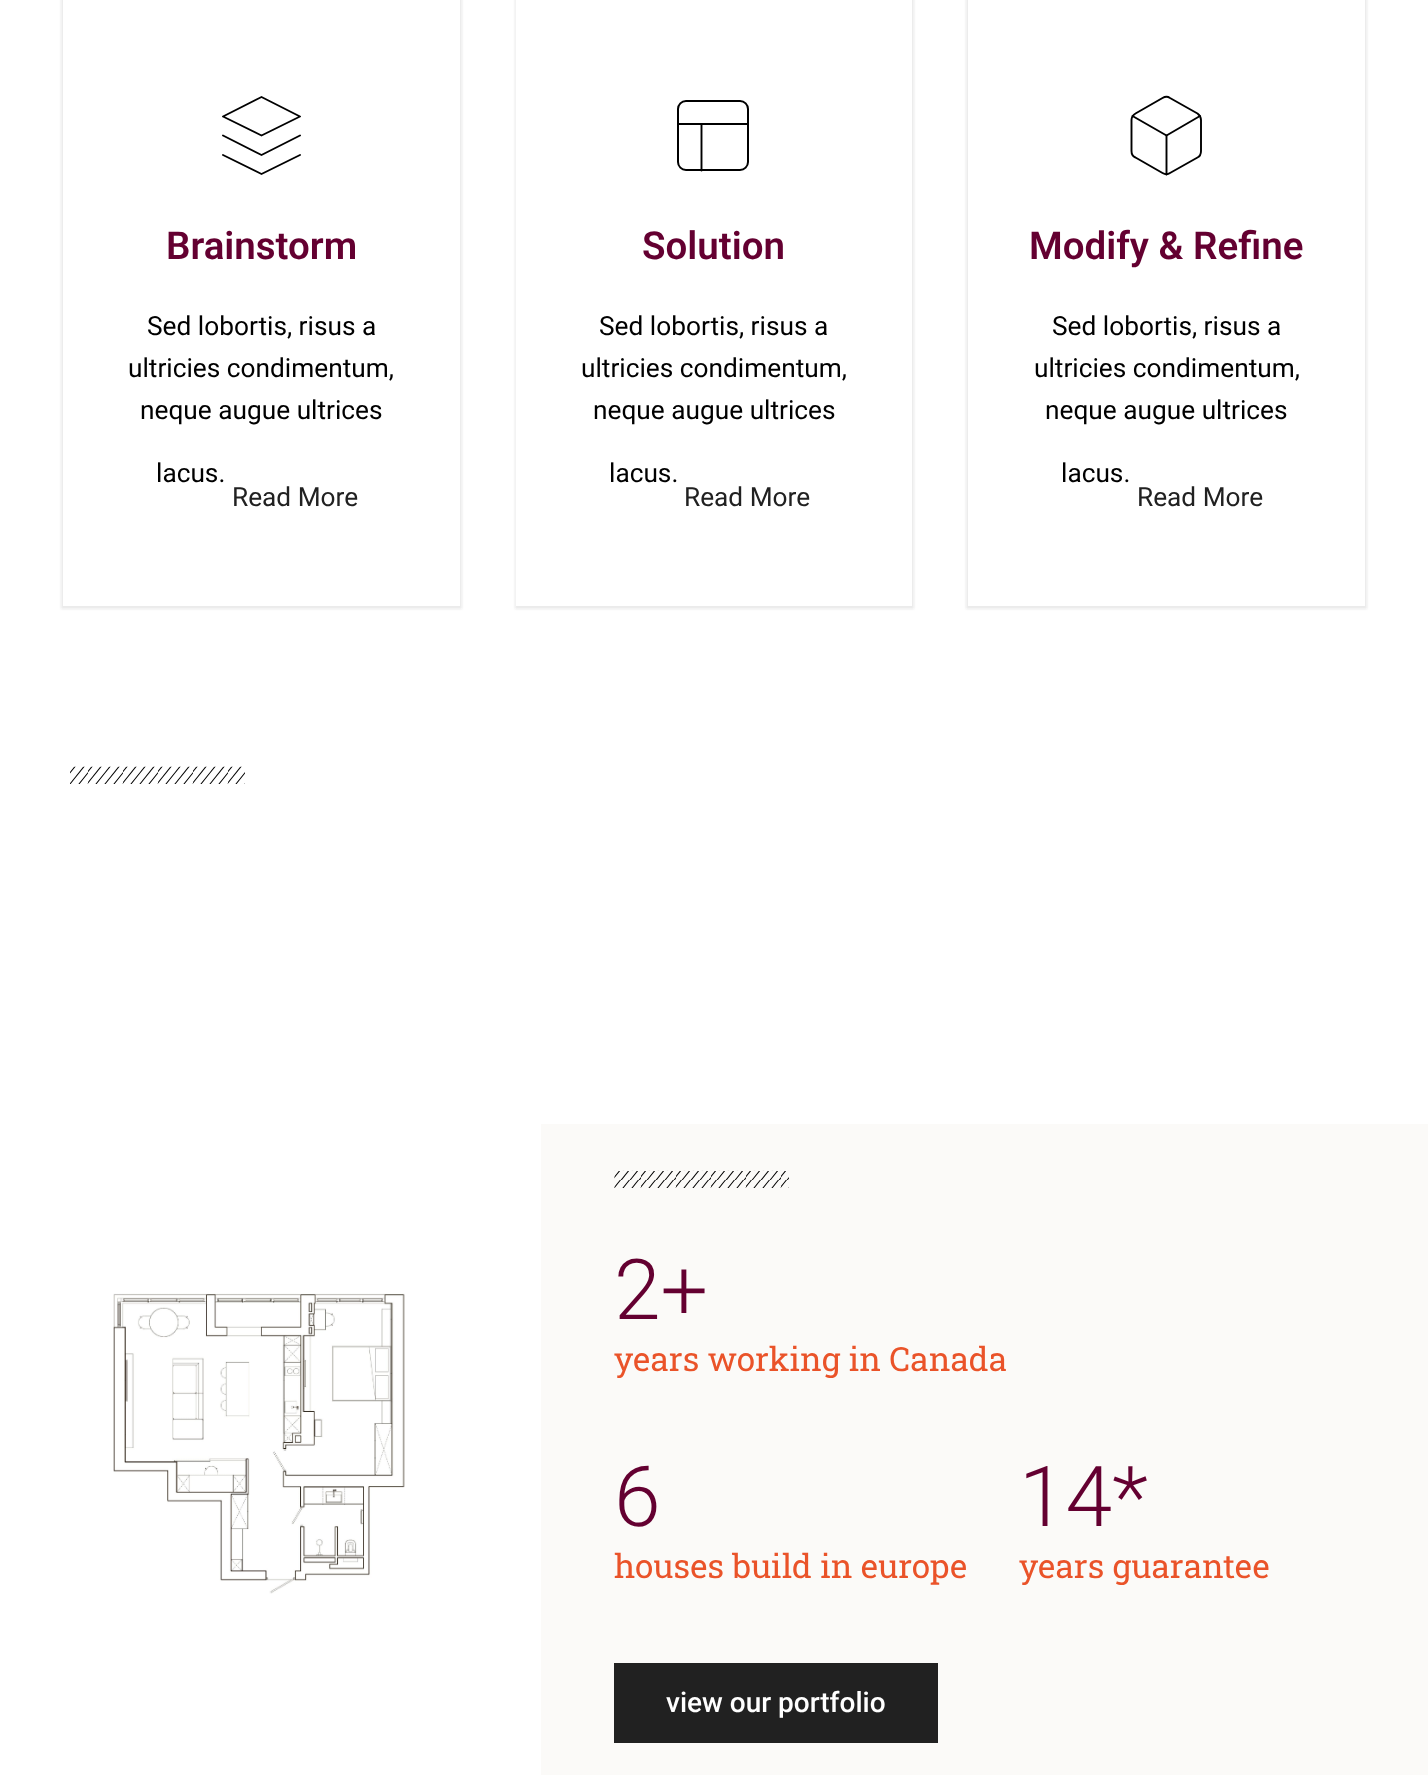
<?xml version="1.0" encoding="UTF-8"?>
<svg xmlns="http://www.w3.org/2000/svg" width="1428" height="1775">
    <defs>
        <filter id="blur1" x="-50%" y="-200%" width="200%" height="500%"><feGaussianBlur stdDeviation="1"/></filter>
    </defs>
    <rect width="100%" height="100%" fill="#FFFFFF"/>
    <rect x="61" y="-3" width="401" height="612" fill="#3E3E3E" fill-opacity="0.1" filter="url(#blur1)"/>
    <rect x="63" y="0" width="397" height="606" fill="#FFFFFF"/>
    <path d="M 261.5 97 L 223 116.5 L 261.5 135.5 L 300 116.5 Z" fill="none" stroke="#000000" stroke-width="1.9" stroke-linecap="round" stroke-linejoin="round"/>
    <path d="M 223 155 L 261.5 174 L 300 155" fill="none" stroke="#000000" stroke-width="1.9" stroke-linecap="round" stroke-linejoin="round"/>
    <path d="M 223 135.5 L 261.5 155 L 300 135.5" fill="none" stroke="#000000" stroke-width="1.9" stroke-linecap="round" stroke-linejoin="round"/>
    <text x="166" y="259" font-family="Roboto" font-size="38.5" font-weight="600" fill="#640031">Brainstorm</text>
    <text x="147" y="335" font-family="Roboto" font-size="26.25" fill="#000000">Sed lobortis, risus a</text>
    <text x="128" y="377" font-family="Roboto" font-size="26.25" fill="#000000">ultricies condimentum,</text>
    <text x="140" y="419" font-family="Roboto" font-size="26.25" fill="#000000">neque augue ultrices</text>
    <text x="156" y="482" font-family="Roboto" font-size="26.25" fill="#000000">lacus.</text>
    <text x="232" y="506" font-family="Roboto" font-size="26.25" fill="#212121">Read More</text>
    <rect x="515" y="-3" width="399" height="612" fill="#3E3E3E" fill-opacity="0.1" filter="url(#blur1)"/>
    <rect x="516" y="0" width="396" height="606" fill="#FFFFFF"/>
    <rect x="678" y="101" width="70" height="69" rx="8" fill="none" stroke="#000000" stroke-width="2"/>
    <path d="M 678.5 124 H 748" fill="none" stroke="#000000" stroke-width="1.9" stroke-linecap="round" stroke-linejoin="round"/>
    <path d="M 701.5 170.5 V 124" fill="none" stroke="#000000" stroke-width="1.9" stroke-linecap="round" stroke-linejoin="round"/>
    <text x="642" y="259" font-family="Roboto" font-size="38.5" font-weight="600" fill="#640031">Solution</text>
    <text x="599" y="335" font-family="Roboto" font-size="26.25" fill="#000000">Sed lobortis, risus a</text>
    <text x="581" y="377" font-family="Roboto" font-size="26.25" fill="#000000">ultricies condimentum,</text>
    <text x="593" y="419" font-family="Roboto" font-size="26.25" fill="#000000">neque augue ultrices</text>
    <text x="609" y="482" font-family="Roboto" font-size="26.25" fill="#000000">lacus.</text>
    <text x="684" y="506" font-family="Roboto" font-size="26.25" fill="#212121">Read More</text>
    <rect x="966" y="-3" width="401" height="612" fill="#3E3E3E" fill-opacity="0.1" filter="url(#blur1)"/>
    <rect x="968" y="0" width="397" height="606" fill="#FFFFFF"/>
    <path d="M 1201 151 V 120 C 1201 117.5 1199.5 115 1197.5 113.5 L 1170 98 C 1168 96.5 1165 96.5 1162.5 98 L 1135.5 113.5 C 1133 115 1131.5 117.5 1131.5 120 V 151 C 1131.5 154 1133 156.5 1135.5 157.5 L 1162.5 173 C 1165 174.5 1168 174.5 1170 173 L 1197.5 157.5 C 1199.5 156.5 1201 154 1201 151 Z" fill="none" stroke="#000000" stroke-width="1.9" stroke-linecap="round" stroke-linejoin="round"/>
    <path d="M 1132.5 116 L 1166.5 135.5 L 1200 116" fill="none" stroke="#000000" stroke-width="1.9" stroke-linecap="round" stroke-linejoin="round"/>
    <path d="M 1166.5 174.5 V 135.5" fill="none" stroke="#000000" stroke-width="1.9" stroke-linecap="round" stroke-linejoin="round"/>
    <text x="1029" y="259" font-family="Roboto" font-size="38.5" font-weight="600" fill="#640031">Modify &amp; Refine</text>
    <text x="1052" y="335" font-family="Roboto" font-size="26.25" fill="#000000">Sed lobortis, risus a</text>
    <text x="1034" y="377" font-family="Roboto" font-size="26.25" fill="#000000">ultricies condimentum,</text>
    <text x="1045" y="419" font-family="Roboto" font-size="26.25" fill="#000000">neque augue ultrices</text>
    <text x="1061" y="482" font-family="Roboto" font-size="26.25" fill="#000000">lacus.</text>
    <text x="1137" y="506" font-family="Roboto" font-size="26.25" fill="#212121">Read More</text>
    <image x="70" y="766" width="175" height="18" href="img_01.png"/>
    <rect x="541" y="1124" width="887" height="651" fill="#FBFAF8"/>
    <image x="113" y="1293" width="292" height="301" href="img_02.png"/>
    <image x="614" y="1170" width="175" height="18" href="img_03.png"/>
    <text x="614" y="1319" font-family="Roboto" font-size="84" font-weight="300" fill="#640031">2+</text>
    <text x="614" y="1371" font-family="Roboto Slab" font-size="33.25" fill="#EA5329">years working in Canada</text>
    <text x="614" y="1526" font-family="Roboto" font-size="84" font-weight="300" fill="#640031">6</text>
    <text x="614" y="1578" font-family="Roboto Slab" font-size="33.25" fill="#EA5329">houses build in europe</text>
    <text x="1019" y="1526" font-family="Roboto" font-size="84" font-weight="300" fill="#640031">14*</text>
    <text x="1019" y="1578" font-family="Roboto Slab" font-size="33.25" fill="#EA5329">years guarantee</text>
    <rect x="614" y="1663" width="324" height="80" fill="#212121"/>
    <text x="666" y="1712" font-family="Roboto" font-size="28" font-weight="500" fill="#FFFFFF">view our portfolio</text>
</svg>
